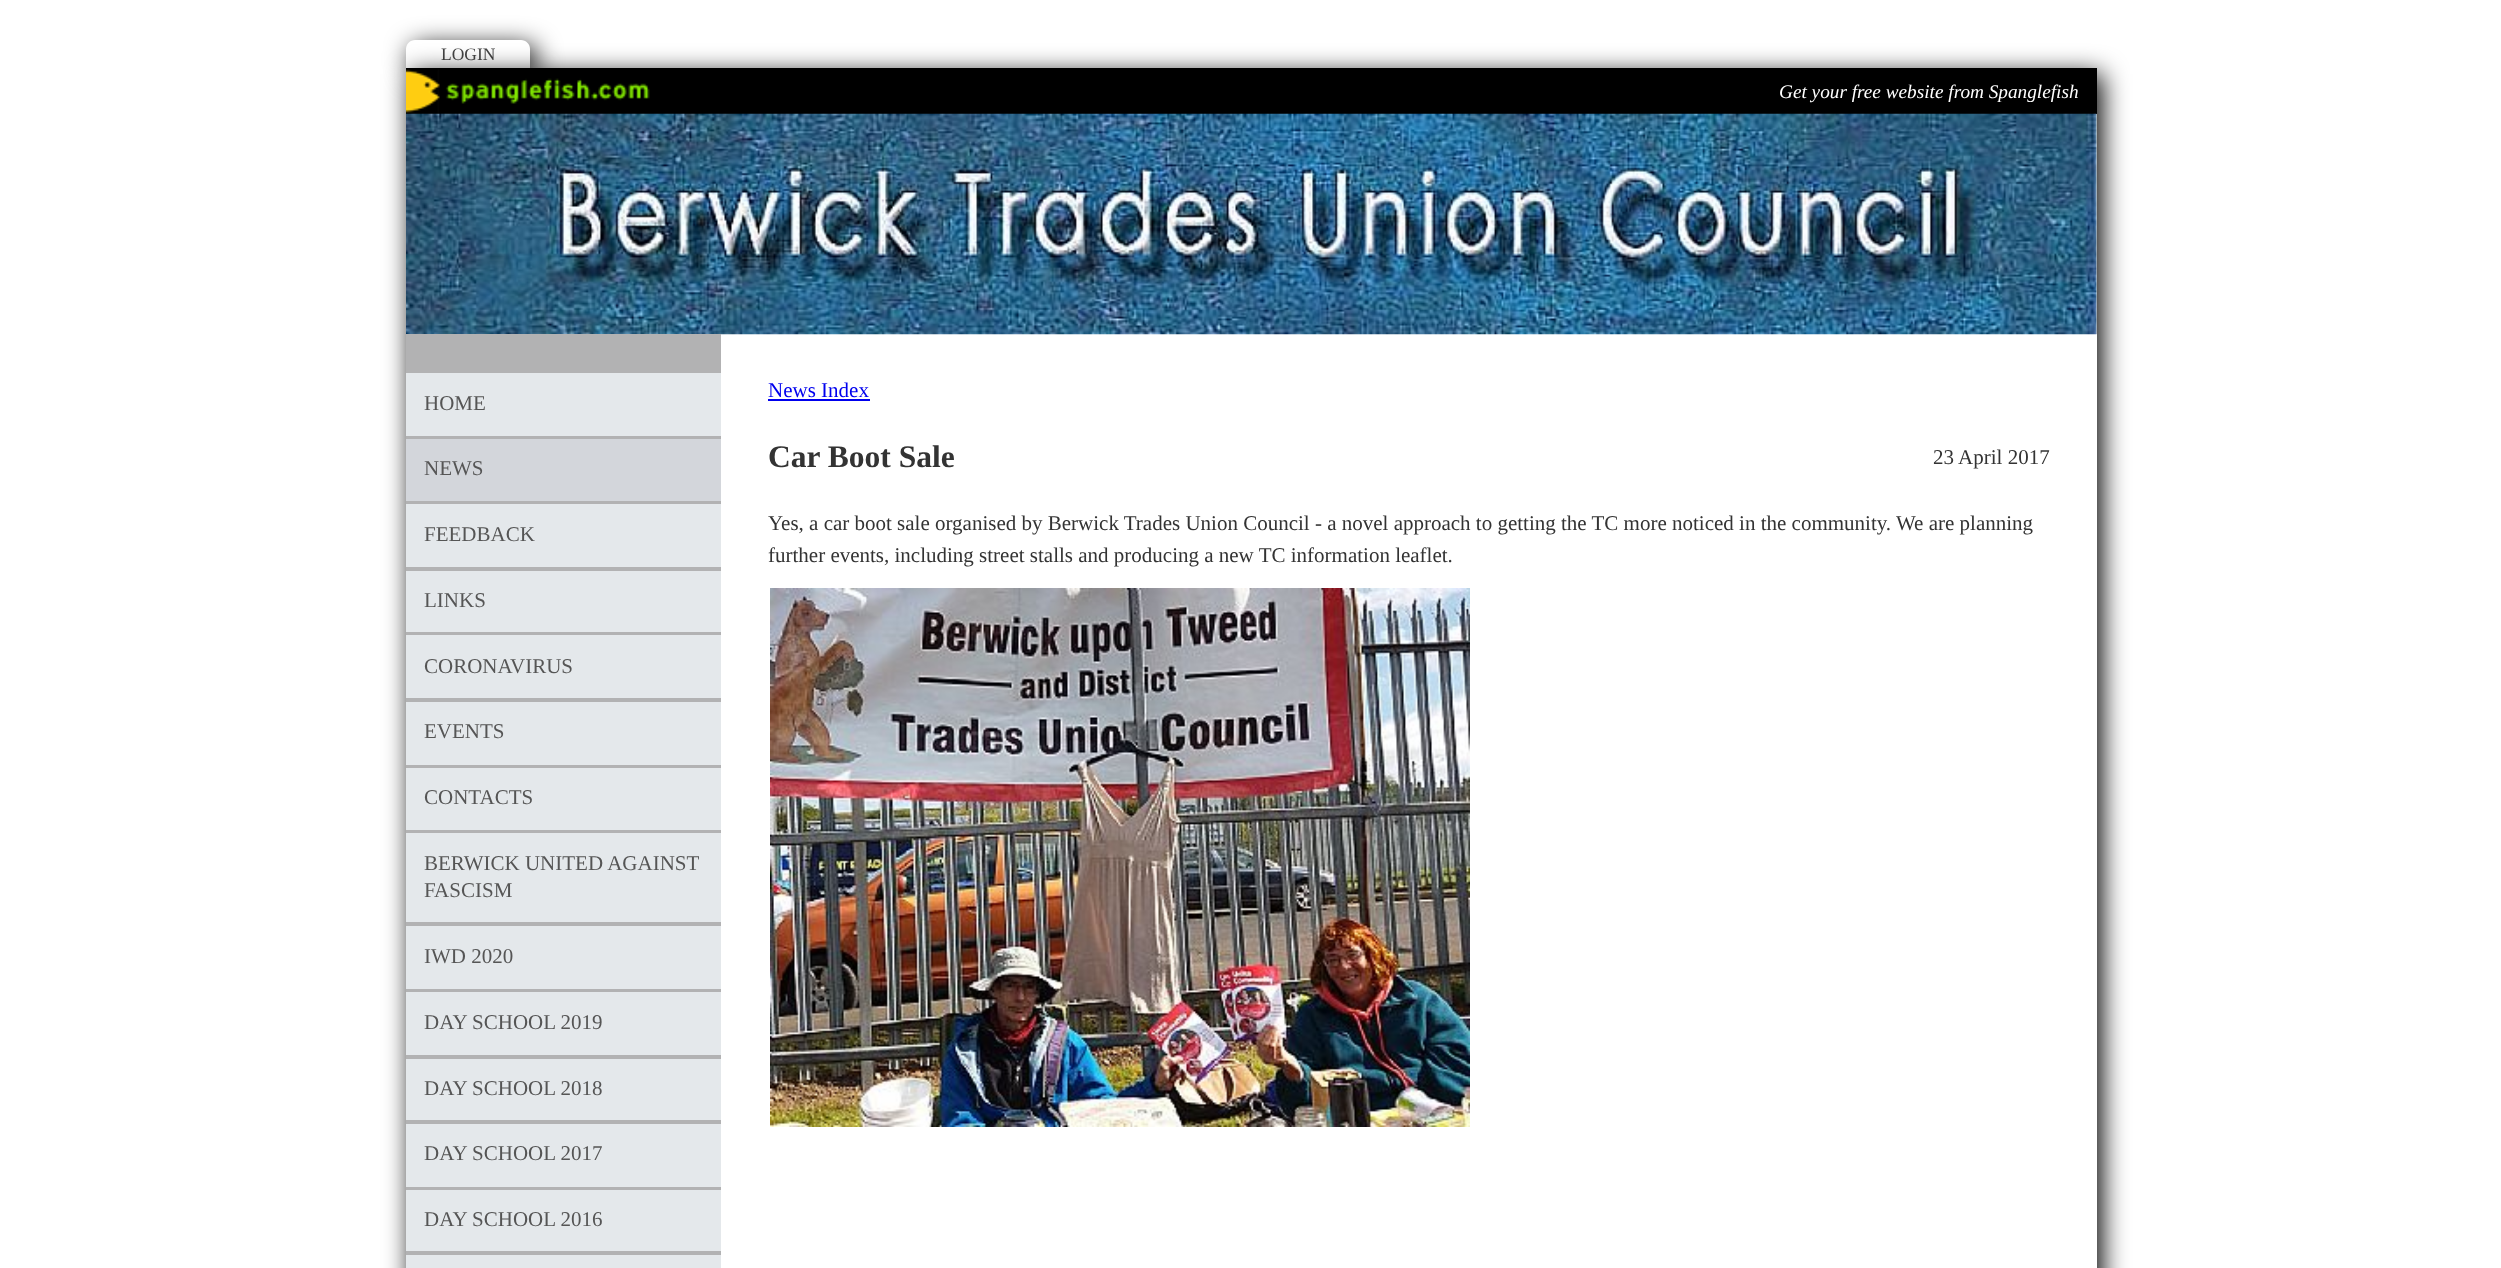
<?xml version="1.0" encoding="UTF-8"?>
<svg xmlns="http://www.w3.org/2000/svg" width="2501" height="1268">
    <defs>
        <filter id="blur1" x="-50%" y="-200%" width="200%" height="500%"><feGaussianBlur stdDeviation="13"/></filter>
    </defs>
    <rect width="100%" height="100%" fill="#FFFFFF"/>
    <rect x="411" y="46" width="125" height="28" rx="9" fill="#000000" filter="url(#blur1)"/>
    <path d="M 415 40 H 521 C 526 40 530 44 530 49 V 68 H 406 V 49 C 406 44 410 40 415 40 Z" fill="#FFFFFF"/>
    <text x="441" y="60" font-family="Liberation Serif" font-size="17.5" fill="#444444">LOGIN</text>
    <rect x="411" y="74" width="1691" height="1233" fill="#000000" filter="url(#blur1)"/>
    <rect x="721" y="334" width="1376" height="934" fill="#FFFFFF"/>
    <rect x="406" y="68" width="1691" height="46" fill="#000000"/>
    <image x="406" y="69" width="244" height="44" href="img_01.png"/>
    <text x="1779" y="98" font-family="Liberation Serif" font-size="19.25" font-style="italic" fill="#FFFFFF">Get your free website from Spanglefish</text>
    <rect x="2096" y="114" width="1" height="220" fill="#E2DCCC"/>
    <image x="406" y="113" width="1691" height="222" href="img_02.png"/>
    <rect x="406" y="334" width="315" height="921" fill="#B2B2B3"/>
    <rect x="406" y="373" width="315" height="63" fill="#E4E8EB"/>
    <text x="424" y="410" font-family="Liberation Serif" font-size="21" fill="#555555">HOME</text>
    <rect x="406" y="439" width="315" height="62" fill="#D3D6DB"/>
    <text x="424" y="475" font-family="Liberation Serif" font-size="21" fill="#555555">NEWS</text>
    <rect x="406" y="504" width="315" height="63" fill="#E4E8EB"/>
    <text x="424" y="541" font-family="Liberation Serif" font-size="21" fill="#555555">FEEDBACK</text>
    <rect x="406" y="571" width="315" height="61" fill="#E4E8EB"/>
    <text x="424" y="607" font-family="Liberation Serif" font-size="21" fill="#555555">LINKS</text>
    <rect x="406" y="635" width="315" height="63" fill="#E4E8EB"/>
    <text x="424" y="673" font-family="Liberation Serif" font-size="21" fill="#555555">CORONAVIRUS</text>
    <rect x="406" y="702" width="315" height="63" fill="#E4E8EB"/>
    <text x="424" y="738" font-family="Liberation Serif" font-size="21" fill="#555555">EVENTS</text>
    <rect x="406" y="768" width="315" height="62" fill="#E4E8EB"/>
    <text x="424" y="804" font-family="Liberation Serif" font-size="21" fill="#555555">CONTACTS</text>
    <rect x="406" y="833" width="315" height="89" fill="#E4E8EB"/>
    <text font-family="Liberation Serif" font-size="21" fill="#555555">
        <tspan x="424" y="870">BERWICK UNITED AGAINST</tspan>
        <tspan x="424" y="897">FASCISM</tspan>
    </text>
    <rect x="406" y="926" width="315" height="63" fill="#E4E8EB"/>
    <text x="424" y="963" font-family="Liberation Serif" font-size="21" fill="#555555">IWD 2020</text>
    <rect x="406" y="992" width="315" height="63" fill="#E4E8EB"/>
    <text x="424" y="1029" font-family="Liberation Serif" font-size="21" fill="#555555">DAY SCHOOL 2019</text>
    <rect x="406" y="1059" width="315" height="61" fill="#E4E8EB"/>
    <text x="424" y="1095" font-family="Liberation Serif" font-size="21" fill="#555555">DAY SCHOOL 2018</text>
    <rect x="406" y="1124" width="315" height="63" fill="#E4E8EB"/>
    <text x="424" y="1160" font-family="Liberation Serif" font-size="21" fill="#555555">DAY SCHOOL 2017</text>
    <rect x="406" y="1190" width="315" height="61" fill="#E4E8EB"/>
    <text x="424" y="1226" font-family="Liberation Serif" font-size="21" fill="#555555">DAY SCHOOL 2016</text>
    <rect x="406" y="1255" width="315" height="13" fill="#E4E8EB"/>
    <text x="768" y="397" font-family="Liberation Serif" font-size="21" fill="#0000EE">News Index</text>
    <rect x="768" y="399" width="102" height="2" fill="#0000EE"/>
    <text x="768" y="467" font-family="Liberation Serif" font-size="31.5" font-weight="700" fill="#333333">Car Boot Sale</text>
    <text x="1933" y="464" font-family="Liberation Serif" font-size="21" fill="#333333">23 April 2017</text>
    <text font-family="Liberation Serif" font-size="21" fill="#333333">
        <tspan x="768" y="530">Yes, a car boot sale organised by Berwick Trades Union Council - a novel approach to getting the TC more noticed in the community. We are planning</tspan>
        <tspan x="768" y="562">further events, including street stalls and producing a new TC information leaflet.</tspan>
    </text>
    <image x="770" y="588" width="700" height="539" href="img_03.png"/>
</svg>
